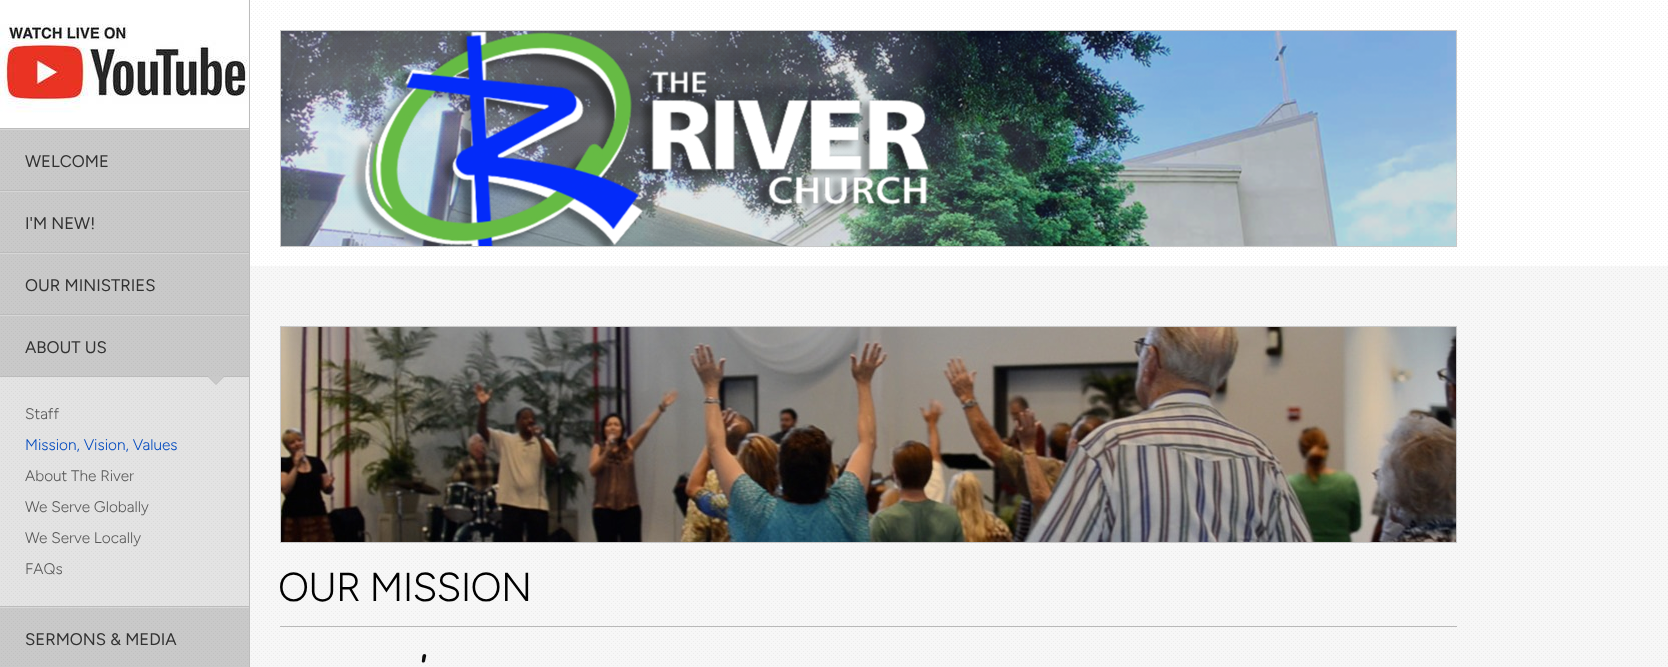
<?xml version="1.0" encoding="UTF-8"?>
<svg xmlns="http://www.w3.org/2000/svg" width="1668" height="667">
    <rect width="100%" height="100%" fill="#BCBCBC"/>
    <image x="0" y="0" width="249" height="128" href="img_01.png"/>
    <rect x="0" y="130" width="249" height="60" fill="#C9C9C9"/>
    <image x="1" y="131" width="247" height="59" href="img_02.png"/>
    <rect x="0" y="129" width="249" height="1" fill="#D6D6D6"/>
    <text x="25" y="167" font-family="'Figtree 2'" font-size="16.75" font-weight="300" fill="#323232">WELCOME</text>
    <rect x="0" y="192" width="249" height="60" fill="#C9C9C9"/>
    <image x="1" y="193" width="247" height="59" href="img_02.png"/>
    <rect x="0" y="191" width="249" height="1" fill="#D6D6D6"/>
    <text x="25" y="229" font-family="'Figtree 2'" font-size="16.75" font-weight="300" fill="#323232">I'M NEW!</text>
    <rect x="0" y="254" width="249" height="60" fill="#C9C9C9"/>
    <image x="1" y="255" width="247" height="59" href="img_02.png"/>
    <rect x="0" y="253" width="249" height="1" fill="#D6D6D6"/>
    <text x="25" y="291" font-family="'Figtree 2'" font-size="16.75" font-weight="300" fill="#323232">OUR MINISTRIES</text>
    <rect x="0" y="316" width="249" height="60" fill="#C9C9C9"/>
    <image x="1" y="317" width="247" height="59" href="img_02.png"/>
    <rect x="0" y="315" width="249" height="1" fill="#D6D6D6"/>
    <text x="25" y="353" font-family="'Figtree 2'" font-size="16.75" font-weight="300" fill="#323232">ABOUT US</text>
    <rect x="0" y="377" width="249" height="229" fill="#E3E3E3"/>
    <image x="1" y="377" width="247" height="229" href="img_03.png"/>
    <path d="M 208 377 H 224 L 216 385 Z" fill="#BCBCBC"/>
    <path d="M 208 376 H 224 L 216 384 Z" fill="#C9C9C9"/>
    <text x="25" y="419" font-family="Figtree" font-size="15.4" font-weight="300" fill="#585858">Staff</text>
    <text x="25" y="450" font-family="Figtree" font-size="15.4" font-weight="300" fill="#0049BF">Mission, Vision, Values</text>
    <text x="25" y="481" font-family="Figtree" font-size="15.4" font-weight="300" fill="#585858">About The River</text>
    <text x="25" y="512" font-family="Figtree" font-size="15.4" font-weight="300" fill="#585858">We Serve Globally</text>
    <text x="25" y="543" font-family="Figtree" font-size="15.4" font-weight="300" fill="#585858">We Serve Locally</text>
    <text x="25" y="574" font-family="Figtree" font-size="15.4" font-weight="300" fill="#585858">FAQs</text>
    <rect x="0" y="608" width="249" height="59" fill="#C9C9C9"/>
    <image x="1" y="609" width="247" height="57" href="img_04.png"/>
    <rect x="0" y="607" width="249" height="1" fill="#D6D6D6"/>
    <text x="25" y="645" font-family="'Figtree 2'" font-size="16.75" font-weight="300" fill="#323232">SERMONS &amp; MEDIA</text>
    <rect x="250" y="0" width="1418" height="266" fill="#FFFFFF"/>
    <image x="251" y="1" width="1417" height="265" href="img_05.png"/>
    <rect x="280.5" y="30.5" width="1176" height="216" fill="none" stroke="#C9C9C9"/>
    <image x="281" y="31" width="1175" height="215" href="img_06.png"/>
    <rect x="250" y="266" width="1418" height="401" fill="#F7F7F7"/>
    <image x="251" y="267" width="1417" height="399" href="img_07.png"/>
    <rect x="280.5" y="326.5" width="1176" height="216" fill="none" stroke="#C9C9C9"/>
    <image x="281" y="327" width="1175" height="215" href="img_08.png"/>
    <rect x="280" y="626" width="1177" height="1" fill="#B9B9B9"/>
    <text x="278" y="601" font-family="Figtree" font-size="40.25" font-weight="300" letter-spacing="-0.75" fill="#000000">OUR MISSION</text>
    <text x="419" y="675" font-family="Pacifico" font-size="25" fill="#0C0C0C">'</text>
</svg>
